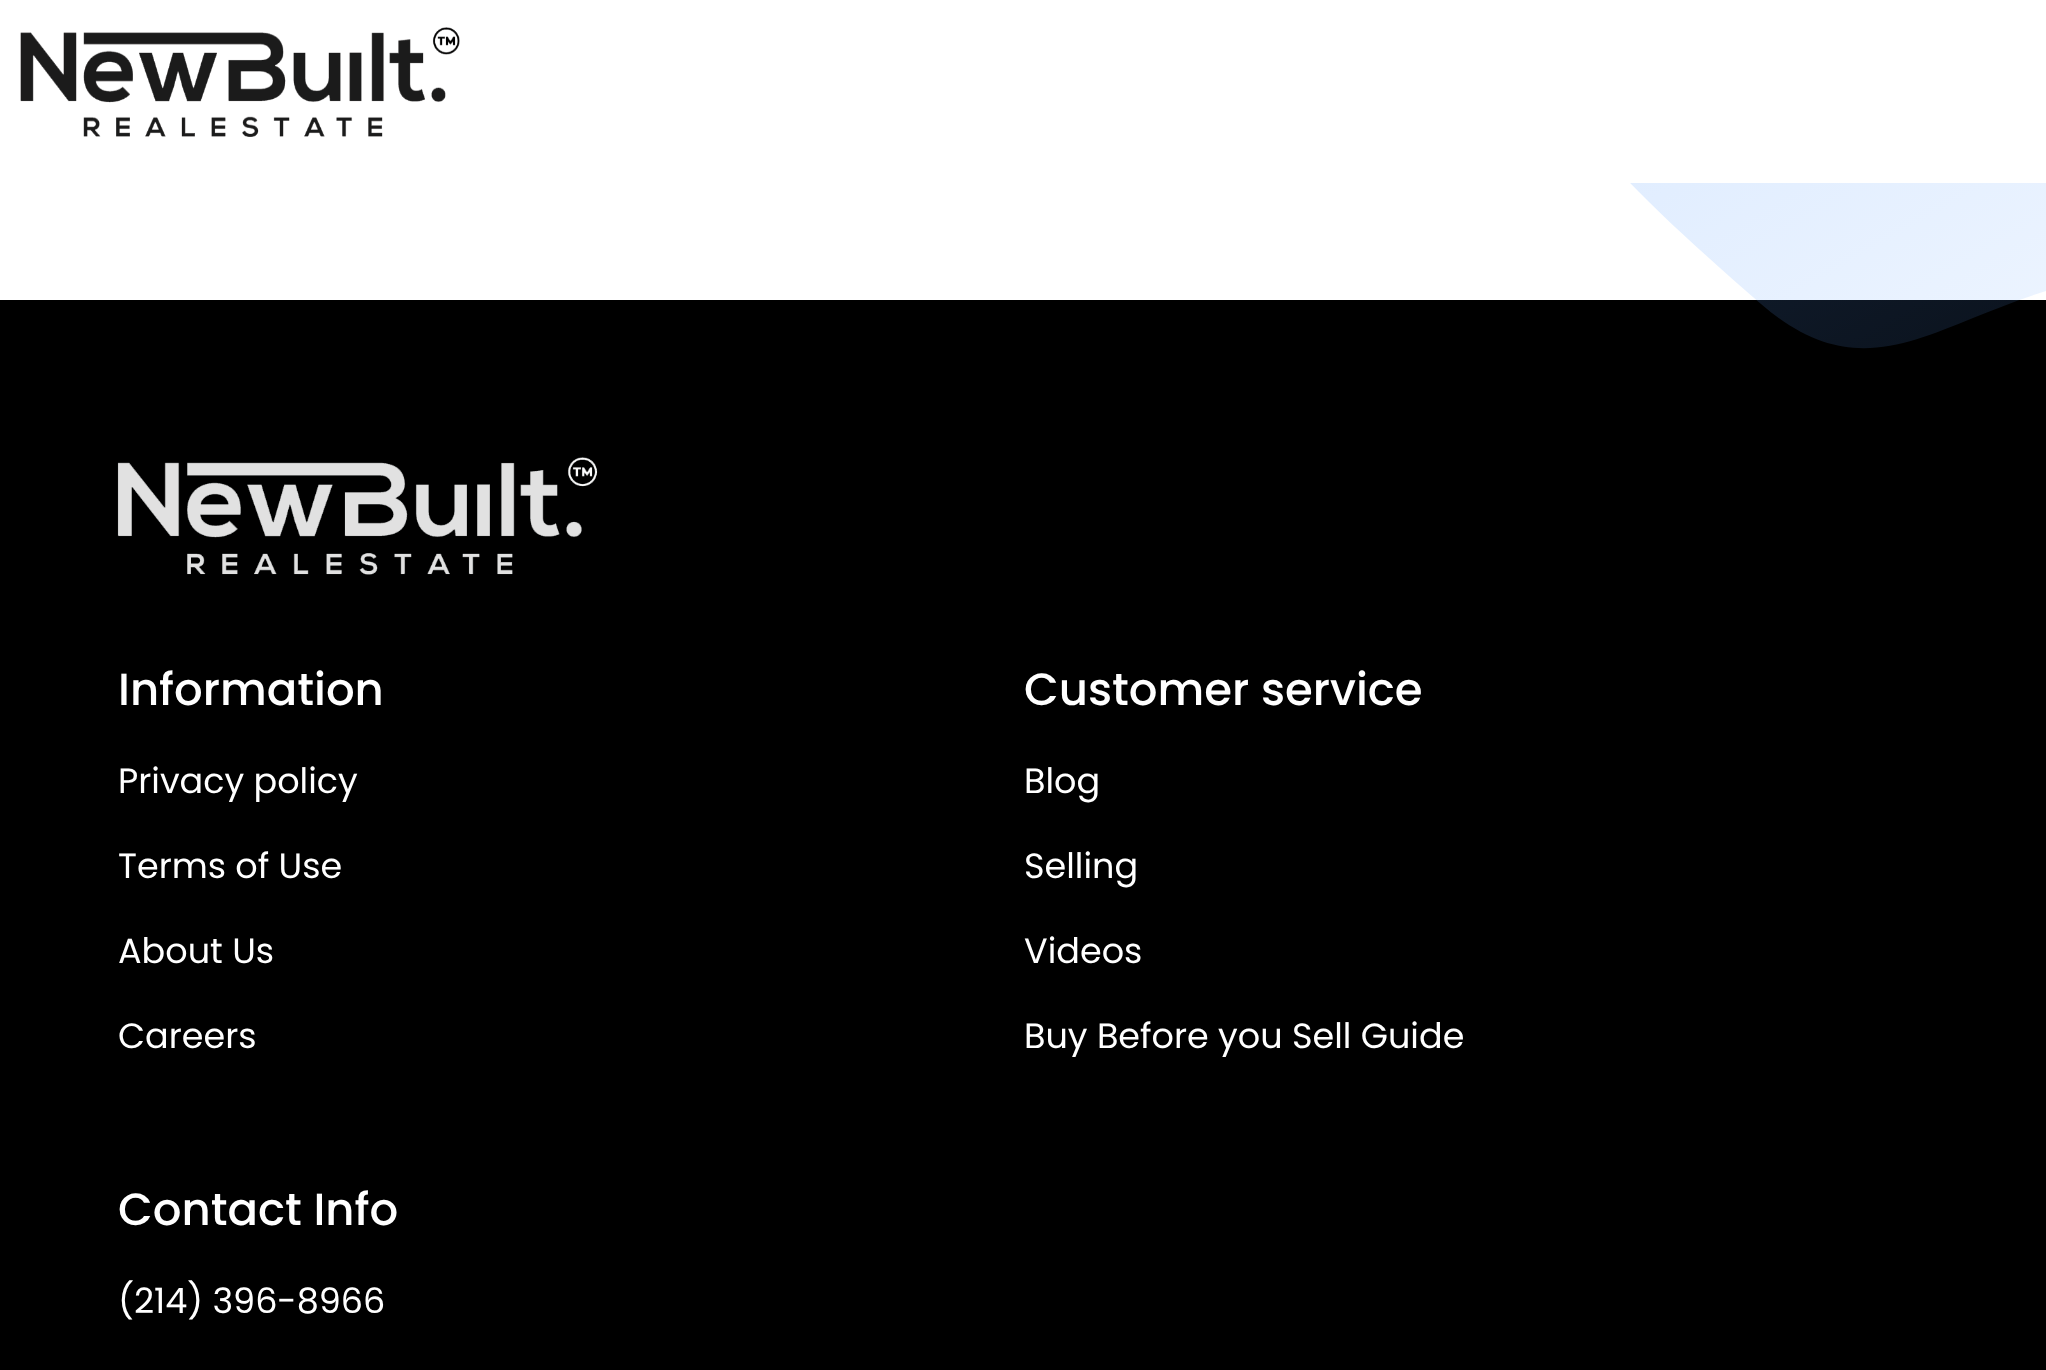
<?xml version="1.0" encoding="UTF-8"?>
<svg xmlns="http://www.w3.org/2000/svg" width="2046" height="1370">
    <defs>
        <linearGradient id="g1" gradientUnits="userSpaceOnUse" x1="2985" y1="470" x2="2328" y2="-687"><stop offset="0" stop-color="#5FA1FF" stop-opacity="0"/><stop offset="1" stop-color="#5FA1FF" stop-opacity="0.27"/></linearGradient>
    </defs>
    <rect width="100%" height="100%" fill="#FFFFFF"/>
    <rect x="0" y="300" width="2046" height="1070" fill="#000000"/>
    <path d="M 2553 404 C 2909 621 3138 376 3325 64 L 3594 -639 C 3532 -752 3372 -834 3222 -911 C 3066 -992 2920 -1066 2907 -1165 C 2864 -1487 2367 -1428 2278 -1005 C 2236 -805 2020 -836 1802 -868 C 1561 -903 1318 -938 1307 -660 C 1287 -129 1566 135 1761 304 C 1840 372 1897 349 1973 318 C 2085 273 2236 211 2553 404 Z" fill="url(#g1)"/>
    <rect x="1480" y="0" width="566" height="183" fill="#FFFFFF"/>
    <image x="20" y="27" width="440" height="110" href="img_01.png"/>
    <image x="117" y="457" width="481" height="118" href="img_02.png"/>
    <text x="118" y="705" font-family="Poppins" font-size="45" font-weight="500" fill="#FFFFFF">Information</text>
    <text x="118" y="793" font-family="Poppins" font-size="35" fill="#FFFFFF">Privacy policy</text>
    <text x="118" y="878" font-family="Poppins" font-size="35" fill="#FFFFFF">Terms of Use</text>
    <text x="118" y="963" font-family="Poppins" font-size="35" fill="#FFFFFF">About Us</text>
    <text x="118" y="1048" font-family="Poppins" font-size="35" fill="#FFFFFF">Careers</text>
    <text x="1024" y="705" font-family="Poppins" font-size="45" font-weight="500" fill="#FFFFFF">Customer service</text>
    <text x="1024" y="793" font-family="Poppins" font-size="35" fill="#FFFFFF">Blog</text>
    <text x="1024" y="878" font-family="Poppins" font-size="35" fill="#FFFFFF">Selling</text>
    <text x="1024" y="963" font-family="Poppins" font-size="35" fill="#FFFFFF">Videos</text>
    <text x="1024" y="1048" font-family="Poppins" font-size="35" fill="#FFFFFF">Buy Before you Sell Guide</text>
    <text x="118" y="1225" font-family="Poppins" font-size="45" font-weight="500" fill="#FFFFFF">Contact Info</text>
    <text x="118" y="1313" font-family="Poppins" font-size="35" fill="#FFFFFF">(214) 396-8966</text>
</svg>
